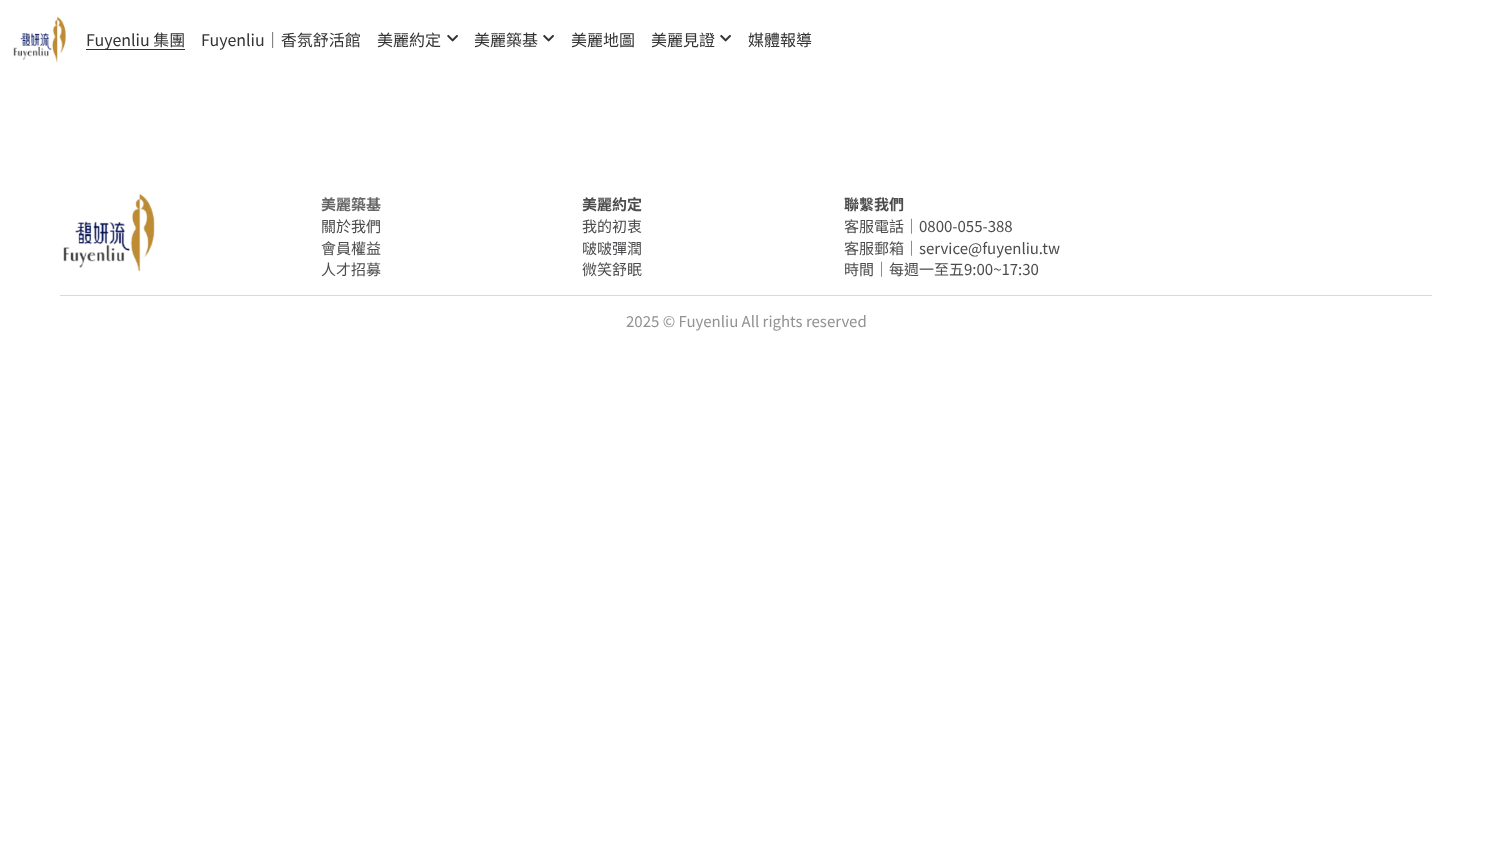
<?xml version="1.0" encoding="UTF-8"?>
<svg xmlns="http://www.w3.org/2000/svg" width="1492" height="841">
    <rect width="100%" height="100%" fill="#FFFFFF"/>
    <image x="13" y="16" width="53" height="47" href="img_01.png"/>
    <rect x="86" y="49" width="99" height="1" fill="#333333"/>
    <text x="86" y="46" font-family="Noto Sans TC" font-size="16" fill="#333333">Fuyenliu 集團</text>
    <text x="201" y="46" font-family="Noto Sans TC" font-size="16" fill="#333333">Fuyenliu｜香氛舒活館</text>
    <text x="377" y="46" font-family="Noto Sans TC" font-size="16" fill="#333333">美麗約定</text>
    <image x="447" y="34" width="11" height="8" href="img_02.png"/>
    <text x="474" y="46" font-family="Noto Sans TC" font-size="16" fill="#333333">美麗築基</text>
    <image x="543" y="34" width="11" height="8" href="img_02.png"/>
    <text x="571" y="46" font-family="Noto Sans TC" font-size="16" fill="#333333">美麗地圖</text>
    <text x="651" y="46" font-family="Noto Sans TC" font-size="16" fill="#333333">美麗見證</text>
    <image x="720" y="34" width="11" height="8" href="img_02.png"/>
    <text x="748" y="46" font-family="Noto Sans TC" font-size="16" fill="#333333">媒體報導</text>
    <image x="63" y="193" width="92" height="78" href="img_03.png"/>
    <text x="321" y="210" font-family="Noto Sans TC" font-size="15" font-weight="700" fill="#666666">美麗築基</text>
    <text font-family="Noto Sans TC" font-size="15" fill="#4C4C4E">
        <tspan x="321" y="232">關於我們</tspan>
        <tspan x="321" y="254">會員權益</tspan>
        <tspan x="321" y="275">人才招募</tspan>
    </text>
    <text x="582" y="210" font-family="Noto Sans TC" font-size="15" font-weight="700" fill="#4C4C4E">美麗約定</text>
    <text font-family="Noto Sans TC" font-size="15" fill="#4C4C4E">
        <tspan x="582" y="232">我的初衷</tspan>
        <tspan x="582" y="254">啵啵彈潤</tspan>
        <tspan x="582" y="275">微笑舒眠</tspan>
    </text>
    <text x="844" y="210" font-family="Noto Sans TC" font-size="15" font-weight="700" fill="#4C4C4E">聯繫我們</text>
    <text font-family="Noto Sans TC" font-size="15" fill="#4C4C4E">
        <tspan x="844" y="232">客服電話｜0800-055-388</tspan>
        <tspan x="844" y="254">客服郵箱｜service@fuyenliu.tw</tspan>
        <tspan x="844" y="275">時間｜每週一至五9:00~17:30</tspan>
    </text>
    <rect x="60" y="295" width="1372" height="1" fill="#D9D9D9"/>
    <text x="626" y="327" font-family="Noto Sans TC" font-size="15" fill="#939191">2025 © Fuyenliu All rights reserved</text>
</svg>
